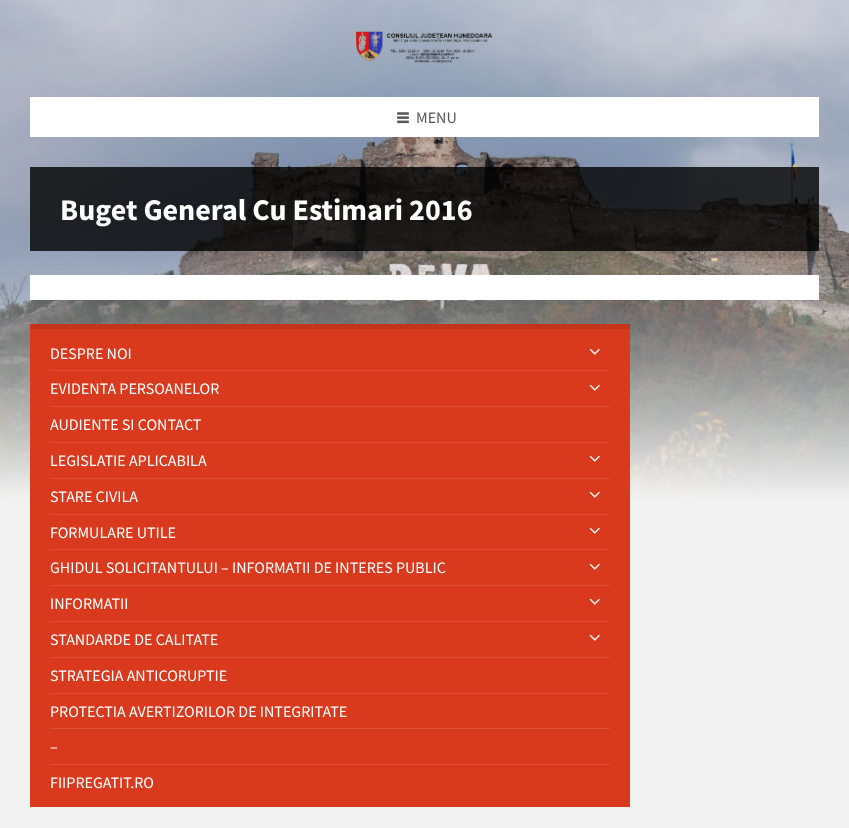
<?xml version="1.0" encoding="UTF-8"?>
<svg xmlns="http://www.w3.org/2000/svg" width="849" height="828">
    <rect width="100%" height="100%" fill="#F2F2F2"/>
    <image x="0" y="0" width="849" height="500" href="img_01.png"/>
    <image x="356" y="31" width="137" height="32" href="img_02.png"/>
    <rect x="30" y="97" width="789" height="40" fill="#FFFFFF"/>
    <image x="397" y="112" width="12" height="12" href="img_03.png"/>
    <text x="416" y="123" font-family="Source Sans Pro" font-size="16" fill="#565656">MENU</text>
    <rect x="30" y="167" width="789" height="84" fill="#000000" fill-opacity="0.8"/>
    <text x="60" y="220" font-family="Source Sans Pro" font-size="30" font-weight="700" fill="#FFFFFF">Buget General Cu Estimari 2016</text>
    <path d="M 31 300 V 301 H 820 V 276 H 819 V 300 Z" fill="#000000" fill-opacity="0.05"/>
    <rect x="30" y="275" width="789" height="25" fill="#FFFFFF"/>
    <rect x="30" y="329" width="600" height="478" fill="#D93A1E"/>
    <rect x="30" y="324" width="600" height="5" fill="#C3341B"/>
    <text x="50" y="359" font-family="Source Sans Pro" font-size="16" fill="#FFFFFF">DESPRE NOI</text>
    <image x="589" y="348" width="11" height="7" href="img_04.png"/>
    <rect x="50" y="370" width="560" height="1" fill="#DD4E35"/>
    <text x="50" y="394" font-family="Source Sans Pro" font-size="16" fill="#FFFFFF">EVIDENTA PERSOANELOR</text>
    <image x="589" y="384" width="11" height="7" href="img_04.png"/>
    <rect x="50" y="406" width="560" height="1" fill="#DD4E35"/>
    <text x="50" y="430" font-family="Source Sans Pro" font-size="16" fill="#FFFFFF">AUDIENTE SI CONTACT</text>
    <rect x="50" y="442" width="560" height="1" fill="#DD4E35"/>
    <text x="50" y="466" font-family="Source Sans Pro" font-size="16" fill="#FFFFFF">LEGISLATIE APLICABILA</text>
    <image x="589" y="455" width="11" height="7" href="img_04.png"/>
    <rect x="50" y="478" width="560" height="1" fill="#DD4E35"/>
    <text x="50" y="502" font-family="Source Sans Pro" font-size="16" fill="#FFFFFF">STARE CIVILA</text>
    <image x="589" y="491" width="11" height="7" href="img_04.png"/>
    <rect x="50" y="514" width="560" height="1" fill="#DD4E35"/>
    <text x="50" y="538" font-family="Source Sans Pro" font-size="16" fill="#FFFFFF">FORMULARE UTILE</text>
    <image x="589" y="527" width="11" height="7" href="img_04.png"/>
    <rect x="50" y="549" width="560" height="1" fill="#DD4E35"/>
    <text x="50" y="573" font-family="Source Sans Pro" font-size="16" fill="#FFFFFF">GHIDUL SOLICITANTULUI – INFORMATII DE INTERES PUBLIC</text>
    <image x="589" y="563" width="11" height="7" href="img_04.png"/>
    <rect x="50" y="585" width="560" height="1" fill="#DD4E35"/>
    <text x="50" y="609" font-family="Source Sans Pro" font-size="16" fill="#FFFFFF">INFORMATII</text>
    <image x="589" y="598" width="11" height="7" href="img_04.png"/>
    <rect x="50" y="621" width="560" height="1" fill="#DD4E35"/>
    <text x="50" y="645" font-family="Source Sans Pro" font-size="16" fill="#FFFFFF">STANDARDE DE CALITATE</text>
    <image x="589" y="634" width="11" height="7" href="img_04.png"/>
    <rect x="50" y="657" width="560" height="1" fill="#DD4E35"/>
    <text x="50" y="681" font-family="Source Sans Pro" font-size="16" fill="#FFFFFF">STRATEGIA ANTICORUPTIE</text>
    <rect x="50" y="693" width="560" height="1" fill="#DD4E35"/>
    <text x="50" y="717" font-family="Source Sans Pro" font-size="16" fill="#FFFFFF">PROTECTIA AVERTIZORILOR DE INTEGRITATE</text>
    <rect x="50" y="728" width="560" height="1" fill="#DD4E35"/>
    <text x="50" y="752" font-family="Source Sans Pro" font-size="16" fill="#FFFFFF">–</text>
    <rect x="50" y="764" width="560" height="1" fill="#DD4E35"/>
    <text x="50" y="788" font-family="Source Sans Pro" font-size="16" fill="#FFFFFF">FIIPREGATIT.RO</text>
</svg>
